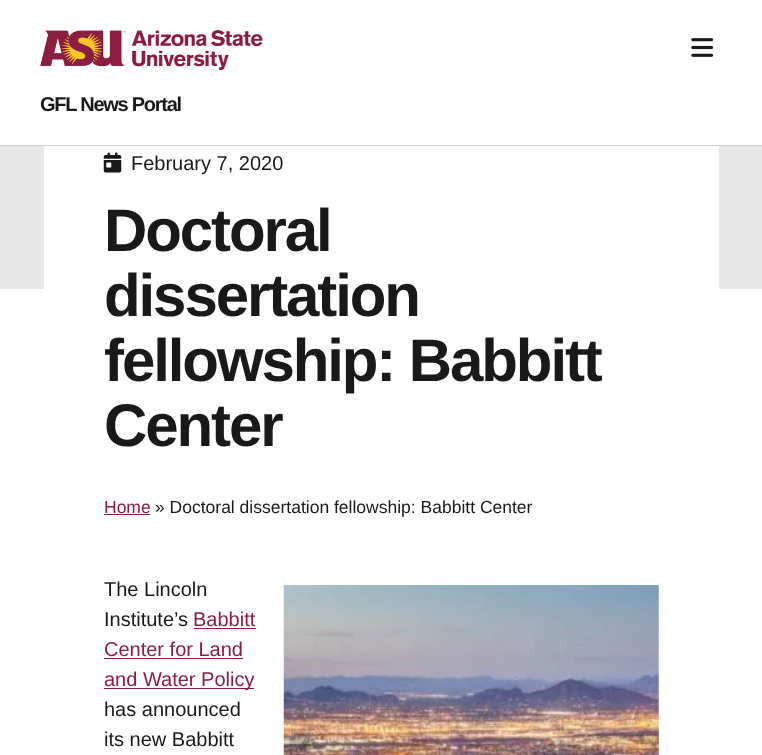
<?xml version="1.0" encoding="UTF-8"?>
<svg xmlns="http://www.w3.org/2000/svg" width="762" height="755">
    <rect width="100%" height="100%" fill="#FFFFFF"/>
    <rect x="0" y="145" width="762" height="1" fill="#D0D0D0"/>
    <image x="40" y="30" width="223" height="40" href="img_01.png"/>
    <image x="691" y="38" width="23" height="19" href="img_02.png"/>
    <text x="40" y="111" font-family="Liberation Sans" font-size="20" font-weight="700" letter-spacing="-1.25" fill="#191919">GFL News Portal</text>
    <rect x="0" y="146" width="762" height="143" fill="#E8E8E8"/>
    <rect x="44" y="146" width="675" height="143" fill="#FFFFFF"/>
    <image x="103" y="152" width="19" height="21" href="img_03.png"/>
    <text x="131" y="170" font-family="Liberation Sans" font-size="20" fill="#191919">February 7, 2020</text>
    <text font-family="Liberation Sans" font-size="60" font-weight="700" letter-spacing="-2.1" fill="#191919">
        <tspan x="104" y="251">Doctoral</tspan>
        <tspan x="104" y="316">dissertation</tspan>
        <tspan x="104" y="381">fellowship: Babbitt</tspan>
        <tspan x="104" y="446">Center</tspan>
    </text>
    <text x="104" y="513" font-family="Liberation Sans" font-size="17.5" fill="#8C1D40">Home</text>
    <rect x="104" y="514" width="46" height="1" fill="#8C1D40"/>
    <text x="155" y="513" font-family="Liberation Sans" font-size="17.5" fill="#191919">» Doctoral dissertation fellowship: Babbitt Center</text>
    <text font-family="Liberation Sans" font-size="20" fill="#191919">
        <tspan x="104" y="596">The Lincoln</tspan>
        <tspan x="104" y="626">Institute’s</tspan>
    </text>
    <text x="193" y="626" font-family="Liberation Sans" font-size="20" fill="#8C1D40">Babbitt</text>
    <rect x="194" y="628" width="62" height="1" fill="#8C1D40"/>
    <text x="104" y="656" font-family="Liberation Sans" font-size="20" fill="#8C1D40">Center for Land</text>
    <rect x="104" y="658" width="139" height="1" fill="#8C1D40"/>
    <rect x="104" y="688" width="150" height="1" fill="#8C1D40"/>
    <text x="104" y="686" font-family="Liberation Sans" font-size="20" fill="#8C1D40">and Water Policy</text>
    <text font-family="Liberation Sans" font-size="20" fill="#191919">
        <tspan x="104" y="716">has announced</tspan>
        <tspan x="104" y="746">its new Babbitt</tspan>
    </text>
    <image x="283" y="585" width="376" height="170" href="img_04.png"/>
</svg>
